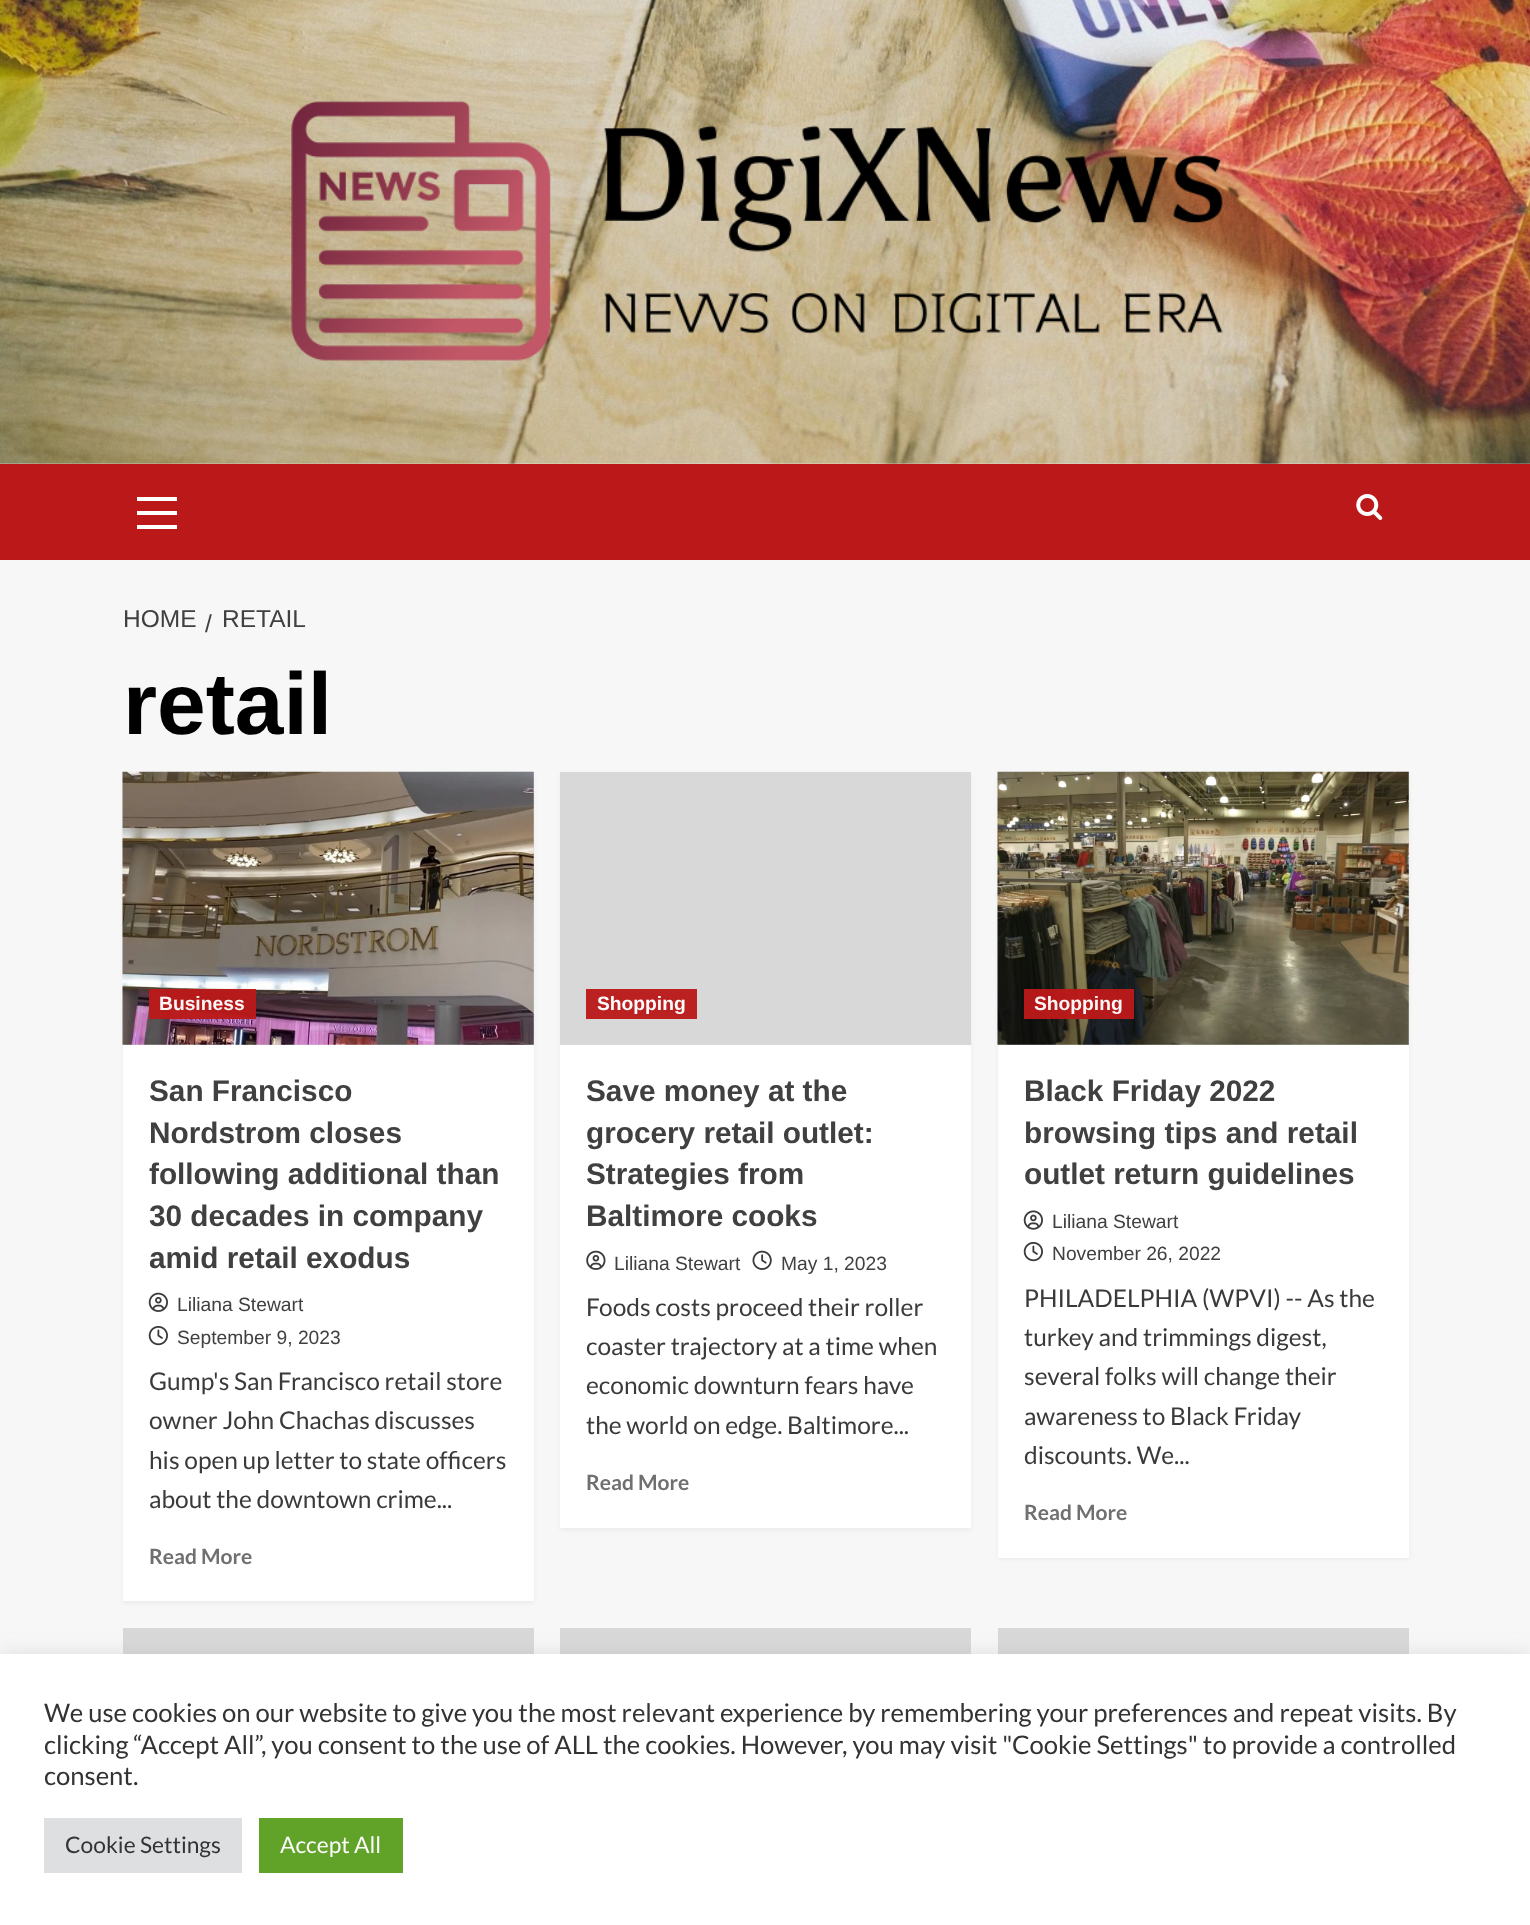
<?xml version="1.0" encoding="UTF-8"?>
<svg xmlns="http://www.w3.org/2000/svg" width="1530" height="1925">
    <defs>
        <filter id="blur1" x="-50%" y="-200%" width="200%" height="500%"><feGaussianBlur stdDeviation="2"/></filter>
        <filter id="blur2" x="-50%" y="-200%" width="200%" height="500%"><feGaussianBlur stdDeviation="9"/></filter>
    </defs>
    <rect width="100%" height="100%" fill="#F7F7F7"/>
    <image x="0" y="0" width="1530" height="464" href="img_01.png"/>
    <image x="291" y="101" width="932" height="260" href="img_02.png"/>
    <rect x="0" y="464" width="1530" height="96" fill="#BB1919"/>
    <rect x="137" y="511" width="40" height="4" fill="#FFFFFF"/>
    <rect x="137" y="497" width="40" height="4" fill="#FFFFFF"/>
    <rect x="137" y="525" width="40" height="4" fill="#FFFFFF"/>
    <image x="1356" y="494" width="27" height="26" href="img_03.png"/>
    <text x="123" y="627" font-family="Liberation Sans" font-size="24.5" fill="#404040">HOME</text>
    <text x="205" y="632" font-family="Liberation Sans" font-size="24.5" fill="#404040">/</text>
    <text x="222" y="627" font-family="Liberation Sans" font-size="24.5" fill="#404040">RETAIL</text>
    <text x="123" y="734" font-family="Liberation Sans" font-size="87.5" font-weight="700" fill="#000000">retail</text>
    <rect x="123" y="774" width="411" height="829" fill="#000000" fill-opacity="0.05" filter="url(#blur1)"/>
    <rect x="123" y="1045" width="411" height="556" fill="#FFFFFF"/>
    <rect x="123" y="772" width="411" height="273" fill="#D8D8D8"/>
    <image x="122" y="771" width="412" height="274" href="img_04.png"/>
    <rect x="149" y="989" width="107" height="30" fill="#BB1919" fill-opacity="0.96"/>
    <text x="159" y="1010" font-family="Liberation Sans" font-size="19.25" font-weight="700" fill="#FCF6F6">Business</text>
    <text font-family="Liberation Sans" font-size="29.75" font-weight="700" fill="#404040">
        <tspan x="149" y="1101">San Francisco</tspan>
        <tspan x="149" y="1143">Nordstrom closes</tspan>
        <tspan x="149" y="1184">following additional than</tspan>
        <tspan x="149" y="1226">30 decades in company</tspan>
        <tspan x="149" y="1268">amid retail exodus</tspan>
    </text>
    <image x="148" y="1292" width="20" height="20" href="img_05.png"/>
    <text x="177" y="1311" font-family="Liberation Sans" font-size="19.25" fill="#404040">Liliana Stewart</text>
    <image x="148" y="1326" width="20" height="20" href="img_06.png"/>
    <text x="177" y="1344" font-family="Liberation Sans" font-size="19.25" fill="#404040">September 9, 2023</text>
    <text font-family="Lato" font-size="24.5" fill="#3A3A3A">
        <tspan x="149" y="1390">Gump's San Francisco retail store</tspan>
        <tspan x="149" y="1429">owner John Chachas discusses</tspan>
        <tspan x="149" y="1469">his open up letter to state officers</tspan>
        <tspan x="149" y="1508">about the downtown crime...</tspan>
    </text>
    <text x="149" y="1564" font-family="Lato" font-size="21" font-weight="700" fill="#707070">Read More</text>
    <rect x="560" y="774" width="411" height="756" fill="#000000" fill-opacity="0.05" filter="url(#blur1)"/>
    <rect x="560" y="1045" width="411" height="483" fill="#FFFFFF"/>
    <rect x="560" y="772" width="411" height="273" fill="#D8D8D8"/>
    <rect x="586" y="989" width="111" height="30" fill="#BC2121"/>
    <text x="597" y="1010" font-family="Liberation Sans" font-size="19.25" font-weight="700" fill="#FDFDFD">Shopping</text>
    <text font-family="Liberation Sans" font-size="29.75" font-weight="700" fill="#404040">
        <tspan x="586" y="1101">Save money at the</tspan>
        <tspan x="586" y="1143">grocery retail outlet:</tspan>
        <tspan x="586" y="1184">Strategies from</tspan>
        <tspan x="586" y="1226">Baltimore cooks</tspan>
    </text>
    <image x="586" y="1250" width="20" height="20" href="img_07.png"/>
    <text x="614" y="1270" font-family="Liberation Sans" font-size="19.25" fill="#404040">Liliana Stewart</text>
    <image x="752" y="1250" width="20" height="20" href="img_08.png"/>
    <text x="781" y="1270" font-family="Liberation Sans" font-size="19.25" fill="#404040">May 1, 2023</text>
    <text font-family="Lato" font-size="24.5" fill="#3A3A3A">
        <tspan x="586" y="1316">Foods costs proceed their roller</tspan>
        <tspan x="586" y="1355">coaster trajectory at a time when</tspan>
        <tspan x="586" y="1394">economic downturn fears have</tspan>
        <tspan x="586" y="1434">the world on edge. Baltimore...</tspan>
    </text>
    <text x="586" y="1490" font-family="Lato" font-size="21" font-weight="700" fill="#707070">Read More</text>
    <rect x="998" y="774" width="411" height="785" fill="#000000" fill-opacity="0.05" filter="url(#blur1)"/>
    <rect x="998" y="1045" width="411" height="513" fill="#FFFFFF"/>
    <rect x="998" y="772" width="411" height="273" fill="#D8D8D8"/>
    <image x="997" y="771" width="412" height="274" href="img_09.png"/>
    <rect x="1024" y="989" width="110" height="30" fill="#BB1919" fill-opacity="0.96"/>
    <text x="1034" y="1010" font-family="Liberation Sans" font-size="19.25" font-weight="700" fill="#FCF6F6">Shopping</text>
    <text font-family="Liberation Sans" font-size="29.75" font-weight="700" fill="#404040">
        <tspan x="1024" y="1101">Black Friday 2022</tspan>
        <tspan x="1024" y="1143">browsing tips and retail</tspan>
        <tspan x="1024" y="1184">outlet return guidelines</tspan>
    </text>
    <image x="1023" y="1210" width="20" height="20" href="img_10.png"/>
    <text x="1052" y="1228" font-family="Liberation Sans" font-size="19.25" fill="#404040">Liliana Stewart</text>
    <image x="1023" y="1242" width="20" height="20" href="img_06.png"/>
    <text x="1052" y="1260" font-family="Liberation Sans" font-size="19.25" fill="#404040">November 26, 2022</text>
    <text font-family="Lato" font-size="24.5" fill="#3A3A3A">
        <tspan x="1024" y="1307">PHILADELPHIA (WPVI) -- As the</tspan>
        <tspan x="1024" y="1346">turkey and trimmings digest,</tspan>
        <tspan x="1024" y="1385">several folks will change their</tspan>
        <tspan x="1024" y="1425">awareness to Black Friday</tspan>
        <tspan x="1024" y="1464">discounts. We...</tspan>
    </text>
    <text x="1024" y="1520" font-family="Lato" font-size="21" font-weight="700" fill="#707070">Read More</text>
    <rect x="123" y="1628" width="411" height="26" fill="#D8D8D8"/>
    <rect x="560" y="1628" width="411" height="26" fill="#D8D8D8"/>
    <rect x="998" y="1628" width="411" height="26" fill="#D8D8D8"/>
    <rect x="0" y="1652" width="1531" height="271" fill="#ACABAB" fill-opacity="0.3" filter="url(#blur2)"/>
    <rect x="0" y="1654" width="1530" height="271" fill="#FFFFFF"/>
    <text font-family="Lato" font-size="25.67" fill="#333333">
        <tspan x="44" y="1722">We use cookies on our website to give you the most relevant experience by remembering your preferences and repeat visits. By</tspan>
        <tspan x="44" y="1754">clicking “Accept All”, you consent to the use of ALL the cookies. However, you may visit "Cookie Settings" to provide a controlled</tspan>
        <tspan x="44" y="1785">consent.</tspan>
    </text>
    <rect x="44" y="1818" width="198" height="55" fill="#DEDFE0"/>
    <text x="65" y="1853" font-family="Lato" font-size="22.75" fill="#333333">Cookie Settings</text>
    <rect x="259" y="1818" width="144" height="55" fill="#61A229"/>
    <text x="280" y="1853" font-family="Lato" font-size="22.75" fill="#FDFDFD">Accept All</text>
</svg>
